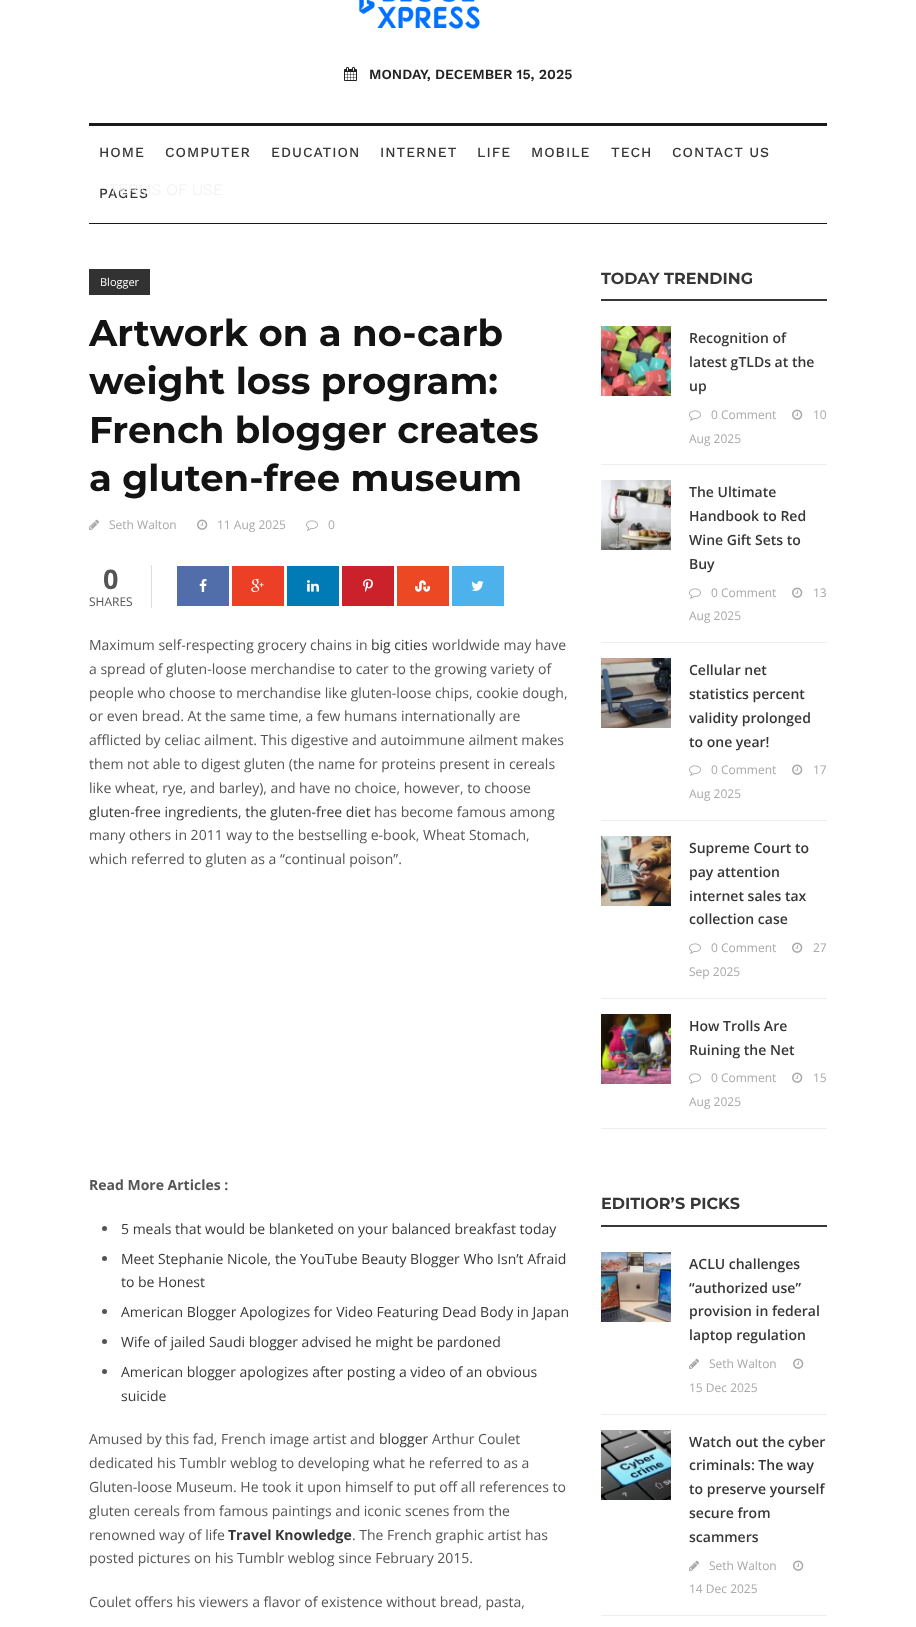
<?xml version="1.0" encoding="UTF-8"?>
<svg xmlns="http://www.w3.org/2000/svg" width="916" height="1627">
    <rect width="100%" height="100%" fill="#FFFFFF"/>
    <image x="358" y="0" width="122" height="29" href="img_01.png"/>
    <image x="344" y="67" width="13" height="14" href="img_02.png"/>
    <text x="369" y="79" font-family="Work Sans" font-size="14" font-weight="600" fill="#222222">MONDAY, DECEMBER 15, 2025</text>
    <rect x="89" y="123" width="738" height="3" fill="#1A1A1A"/>
    <rect x="89" y="223" width="738" height="1" fill="#1A1A1A"/>
    <text x="99" y="157" font-family="Work Sans" font-size="14" font-weight="500" letter-spacing="1" fill="#373737">HOME</text>
    <text x="165" y="157" font-family="Work Sans" font-size="14" font-weight="500" letter-spacing="1" fill="#373737">COMPUTER</text>
    <text x="271" y="157" font-family="Work Sans" font-size="14" font-weight="500" letter-spacing="1" fill="#373737">EDUCATION</text>
    <text x="380" y="157" font-family="Work Sans" font-size="14" font-weight="500" letter-spacing="1" fill="#373737">INTERNET</text>
    <text x="477" y="157" font-family="Work Sans" font-size="14" font-weight="500" letter-spacing="1" fill="#373737">LIFE</text>
    <text x="531" y="157" font-family="Work Sans" font-size="14" font-weight="500" letter-spacing="1" fill="#373737">MOBILE</text>
    <text x="611" y="157" font-family="Work Sans" font-size="14" font-weight="500" letter-spacing="1" fill="#373737">TECH</text>
    <text x="672" y="157" font-family="Work Sans" font-size="14" font-weight="500" letter-spacing="1" fill="#373737">CONTACT US</text>
    <text x="99" y="198" font-family="Work Sans" font-size="14" font-weight="500" letter-spacing="1" fill="#373737">PAGES</text>
    <text x="109" y="195" font-family="Work Sans" font-size="16" font-weight="300" fill="#EEEEEE">TERMS OF USE</text>
    <rect x="89" y="269" width="61" height="26" fill="#323232"/>
    <text x="100" y="286" font-family="Open Sans" font-size="11" fill="#FFFFFF">Blogger</text>
    <text font-family="Montserrat" font-size="37" font-weight="700" fill="#131313">
        <tspan x="89" y="346">Artwork on a no-carb</tspan>
        <tspan x="89" y="394">weight loss program:</tspan>
        <tspan x="89" y="443">French blogger creates</tspan>
        <tspan x="89" y="491">a gluten-free museum</tspan>
    </text>
    <image x="89" y="519" width="10" height="11" href="img_03.png"/>
    <text x="109" y="529" font-family="Open Sans" font-size="12" fill="#A8A8A8">Seth Walton</text>
    <image x="197" y="519" width="11" height="11" href="img_04.png"/>
    <text x="217" y="529" font-family="Open Sans" font-size="12" fill="#A8A8A8">11 Aug 2025</text>
    <image x="306" y="520" width="12" height="11" href="img_05.png"/>
    <text x="328" y="529" font-family="Open Sans" font-size="12" fill="#A8A8A8">0</text>
    <rect x="151" y="565" width="1" height="43" fill="#DDDDDD"/>
    <text x="103" y="589" font-family="Open Sans" font-size="27" font-weight="700" fill="#555555">0</text>
    <text x="89" y="606" font-family="Open Sans" font-size="12" fill="#555555">SHARES</text>
    <rect x="177" y="566" width="52" height="40" fill="#516EAB"/>
    <image x="199" y="579" width="8" height="13" href="img_06.png"/>
    <rect x="232" y="566" width="52" height="40" fill="#EB4026"/>
    <image x="251" y="579" width="13" height="13" href="img_07.png"/>
    <rect x="287" y="566" width="52" height="40" fill="#007BB6"/>
    <image x="307" y="580" width="12" height="12" href="img_08.png"/>
    <rect x="342" y="566" width="52" height="40" fill="#CA212A"/>
    <image x="363" y="579" width="10" height="13" href="img_09.png"/>
    <rect x="397" y="566" width="52" height="40" fill="#EB4823"/>
    <image x="415" y="580" width="15" height="12" href="img_10.png"/>
    <rect x="452" y="566" width="52" height="40" fill="#4DB2EC"/>
    <image x="471" y="581" width="13" height="10" href="img_11.png"/>
    <text x="89" y="650" font-family="Open Sans" font-size="14" fill="#555555">Maximum self-respecting grocery chains in</text>
    <text x="371" y="650" font-family="Open Sans" font-size="14" fill="#373737">big cities</text>
    <text x="432" y="650" font-family="Open Sans" font-size="14" fill="#555555">worldwide may have</text>
    <text font-family="Open Sans" font-size="14" fill="#555555">
        <tspan x="89" y="674">a spread of gluten-loose merchandise to cater to the growing variety of</tspan>
        <tspan x="89" y="698">people who choose to merchandise like gluten-loose chips, cookie dough,</tspan>
        <tspan x="89" y="721">or even bread. At the same time, a few humans internationally are</tspan>
        <tspan x="89" y="745">afflicted by celiac ailment. This digestive and autoimmune ailment makes</tspan>
        <tspan x="89" y="769">them not able to digest gluten (the name for proteins present in cereals</tspan>
        <tspan x="89" y="793">like wheat, rye, and barley), and have no choice, however, to choose</tspan>
    </text>
    <text x="89" y="817" font-family="Open Sans" font-size="14" fill="#373737">gluten-free ingredients, the gluten-free diet</text>
    <text x="374" y="817" font-family="Open Sans" font-size="14" fill="#555555">has become famous among</text>
    <text font-family="Open Sans" font-size="14" fill="#555555">
        <tspan x="89" y="840">many others in 2011 way to the bestselling e-book, Wheat Stomach,</tspan>
        <tspan x="89" y="864">which referred to gluten as a “continual poison”.</tspan>
    </text>
    <text x="89" y="1190" font-family="Open Sans" font-size="14" font-weight="700" fill="#555555">Read More Articles :</text>
    <circle cx="104.5" cy="1228.5" r="2.5" fill="#555555"/>
    <text x="121" y="1234" font-family="Open Sans" font-size="14" fill="#373737">5 meals that would be blanketed on your balanced breakfast today</text>
    <circle cx="104.5" cy="1258.5" r="2.5" fill="#555555"/>
    <text font-family="Open Sans" font-size="14" fill="#373737">
        <tspan x="121" y="1264">Meet Stephanie Nicole, the YouTube Beauty Blogger Who Isn’t Afraid</tspan>
        <tspan x="121" y="1287">to be Honest</tspan>
    </text>
    <circle cx="104.5" cy="1311.5" r="2.5" fill="#555555"/>
    <text x="121" y="1317" font-family="Open Sans" font-size="14" fill="#373737">American Blogger Apologizes for Video Featuring Dead Body in Japan</text>
    <circle cx="104.5" cy="1341.5" r="2.5" fill="#555555"/>
    <text x="121" y="1347" font-family="Open Sans" font-size="14" fill="#373737">Wife of jailed Saudi blogger advised he might be pardoned</text>
    <circle cx="104.5" cy="1371.5" r="2.5" fill="#555555"/>
    <text font-family="Open Sans" font-size="14" fill="#373737">
        <tspan x="121" y="1377">American blogger apologizes after posting a video of an obvious</tspan>
        <tspan x="121" y="1401">suicide</tspan>
    </text>
    <text x="89" y="1444" font-family="Open Sans" font-size="14" fill="#555555">Amused by this fad, French image artist and</text>
    <text x="379" y="1444" font-family="Open Sans" font-size="14" fill="#373737">blogger</text>
    <text x="432" y="1444" font-family="Open Sans" font-size="14" fill="#555555">Arthur Coulet</text>
    <text font-family="Open Sans" font-size="14" fill="#555555">
        <tspan x="89" y="1468">dedicated his Tumblr weblog to developing what he referred to as a</tspan>
        <tspan x="89" y="1492">Gluten-loose Museum. He took it upon himself to put off all references to</tspan>
        <tspan x="89" y="1516">gluten cereals from famous paintings and iconic scenes from the</tspan>
        <tspan x="89" y="1540">renowned way of life</tspan>
    </text>
    <text x="228" y="1540" font-family="Open Sans" font-size="14" font-weight="700" fill="#373737">Travel Knowledge</text>
    <text x="352" y="1540" font-family="Open Sans" font-size="14" fill="#555555">. The French graphic artist has</text>
    <text x="89" y="1563" font-family="Open Sans" font-size="14" fill="#555555">posted pictures on his Tumblr weblog since February 2015.</text>
    <text x="89" y="1607" font-family="Open Sans" font-size="14" fill="#555555">Coulet offers his viewers a flavor of existence without bread, pasta,</text>
    <rect x="601" y="299" width="226" height="2" fill="#383838"/>
    <text x="601" y="284" font-family="Montserrat" font-size="16" font-weight="700" fill="#373737">TODAY TRENDING</text>
    <rect x="601" y="464" width="226" height="1" fill="#EEEEEE"/>
    <image x="601" y="326" width="70" height="70" href="img_12.png"/>
    <text font-family="Open Sans" font-size="14" font-weight="600" fill="#373737">
        <tspan x="689" y="343">Recognition of</tspan>
        <tspan x="689" y="367">latest gTLDs at the</tspan>
        <tspan x="689" y="391">up</tspan>
    </text>
    <image x="792" y="409" width="11" height="11" href="img_04.png"/>
    <text x="813" y="419" font-family="Open Sans" font-size="12" fill="#A8A8A8">10</text>
    <text x="689" y="443" font-family="Open Sans" font-size="12" fill="#A8A8A8">Aug 2025</text>
    <image x="689" y="410" width="12" height="11" href="img_05.png"/>
    <text x="711" y="419" font-family="Open Sans" font-size="12" fill="#A8A8A8">0 Comment</text>
    <rect x="601" y="642" width="226" height="1" fill="#EEEEEE"/>
    <image x="601" y="480" width="70" height="70" href="img_13.png"/>
    <text font-family="Open Sans" font-size="14" font-weight="600" fill="#373737">
        <tspan x="689" y="497">The Ultimate</tspan>
        <tspan x="689" y="521">Handbook to Red</tspan>
        <tspan x="689" y="545">Wine Gift Sets to</tspan>
        <tspan x="689" y="569">Buy</tspan>
    </text>
    <image x="792" y="587" width="11" height="11" href="img_04.png"/>
    <text x="813" y="597" font-family="Open Sans" font-size="12" fill="#A8A8A8">13</text>
    <text x="689" y="620" font-family="Open Sans" font-size="12" fill="#A8A8A8">Aug 2025</text>
    <image x="689" y="588" width="12" height="11" href="img_05.png"/>
    <text x="711" y="597" font-family="Open Sans" font-size="12" fill="#A8A8A8">0 Comment</text>
    <rect x="601" y="820" width="226" height="1" fill="#EEEEEE"/>
    <image x="601" y="658" width="70" height="70" href="img_14.png"/>
    <text font-family="Open Sans" font-size="14" font-weight="600" fill="#373737">
        <tspan x="689" y="675">Cellular net</tspan>
        <tspan x="689" y="699">statistics percent</tspan>
        <tspan x="689" y="723">validity prolonged</tspan>
        <tspan x="689" y="747">to one year!</tspan>
    </text>
    <image x="792" y="764" width="11" height="11" href="img_04.png"/>
    <text x="813" y="774" font-family="Open Sans" font-size="12" fill="#A8A8A8">17</text>
    <text x="689" y="798" font-family="Open Sans" font-size="12" fill="#A8A8A8">Aug 2025</text>
    <image x="689" y="765" width="12" height="11" href="img_05.png"/>
    <text x="711" y="774" font-family="Open Sans" font-size="12" fill="#A8A8A8">0 Comment</text>
    <rect x="601" y="998" width="226" height="1" fill="#EEEEEE"/>
    <image x="601" y="836" width="70" height="70" href="img_15.png"/>
    <text font-family="Open Sans" font-size="14" font-weight="600" fill="#373737">
        <tspan x="689" y="853">Supreme Court to</tspan>
        <tspan x="689" y="877">pay attention</tspan>
        <tspan x="689" y="901">internet sales tax</tspan>
        <tspan x="689" y="924">collection case</tspan>
    </text>
    <image x="792" y="942" width="11" height="11" href="img_04.png"/>
    <text x="813" y="952" font-family="Open Sans" font-size="12" fill="#A8A8A8">27</text>
    <text x="689" y="976" font-family="Open Sans" font-size="12" fill="#A8A8A8">Sep 2025</text>
    <image x="689" y="943" width="12" height="11" href="img_05.png"/>
    <text x="711" y="952" font-family="Open Sans" font-size="12" fill="#A8A8A8">0 Comment</text>
    <rect x="601" y="1128" width="226" height="1" fill="#EEEEEE"/>
    <image x="601" y="1014" width="70" height="70" href="img_16.png"/>
    <text font-family="Open Sans" font-size="14" font-weight="600" fill="#373737">
        <tspan x="689" y="1031">How Trolls Are</tspan>
        <tspan x="689" y="1055">Ruining the Net</tspan>
    </text>
    <image x="792" y="1072" width="11" height="11" href="img_04.png"/>
    <text x="813" y="1082" font-family="Open Sans" font-size="12" fill="#A8A8A8">15</text>
    <text x="689" y="1106" font-family="Open Sans" font-size="12" fill="#A8A8A8">Aug 2025</text>
    <image x="689" y="1073" width="12" height="11" href="img_05.png"/>
    <text x="711" y="1082" font-family="Open Sans" font-size="12" fill="#A8A8A8">0 Comment</text>
    <rect x="601" y="1225" width="226" height="2" fill="#383838"/>
    <text x="601" y="1209" font-family="Montserrat" font-size="16" font-weight="700" fill="#373737">EDITIOR’S PICKS</text>
    <rect x="601" y="1414" width="226" height="1" fill="#EEEEEE"/>
    <image x="601" y="1252" width="70" height="70" href="img_17.png"/>
    <text font-family="Open Sans" font-size="14" font-weight="600" fill="#373737">
        <tspan x="689" y="1269">ACLU challenges</tspan>
        <tspan x="689" y="1293">“authorized use”</tspan>
        <tspan x="689" y="1316">provision in federal</tspan>
        <tspan x="689" y="1340">laptop regulation</tspan>
    </text>
    <image x="689" y="1358" width="10" height="11" href="img_03.png"/>
    <text x="709" y="1368" font-family="Open Sans" font-size="12" fill="#A8A8A8">Seth Walton</text>
    <image x="793" y="1358" width="11" height="11" href="img_04.png"/>
    <text x="689" y="1392" font-family="Open Sans" font-size="12" fill="#A8A8A8">15 Dec 2025</text>
    <rect x="601" y="1615" width="226" height="1" fill="#EEEEEE"/>
    <image x="601" y="1430" width="70" height="70" href="img_18.png"/>
    <text font-family="Open Sans" font-size="14" font-weight="600" fill="#373737">
        <tspan x="689" y="1447">Watch out the cyber</tspan>
        <tspan x="689" y="1470">criminals: The way</tspan>
        <tspan x="689" y="1494">to preserve yourself</tspan>
        <tspan x="689" y="1518">secure from</tspan>
        <tspan x="689" y="1542">scammers</tspan>
    </text>
    <image x="689" y="1560" width="10" height="11" href="img_03.png"/>
    <text x="709" y="1570" font-family="Open Sans" font-size="12" fill="#A8A8A8">Seth Walton</text>
    <image x="793" y="1560" width="11" height="11" href="img_04.png"/>
    <text x="689" y="1593" font-family="Open Sans" font-size="12" fill="#A8A8A8">14 Dec 2025</text>
</svg>
